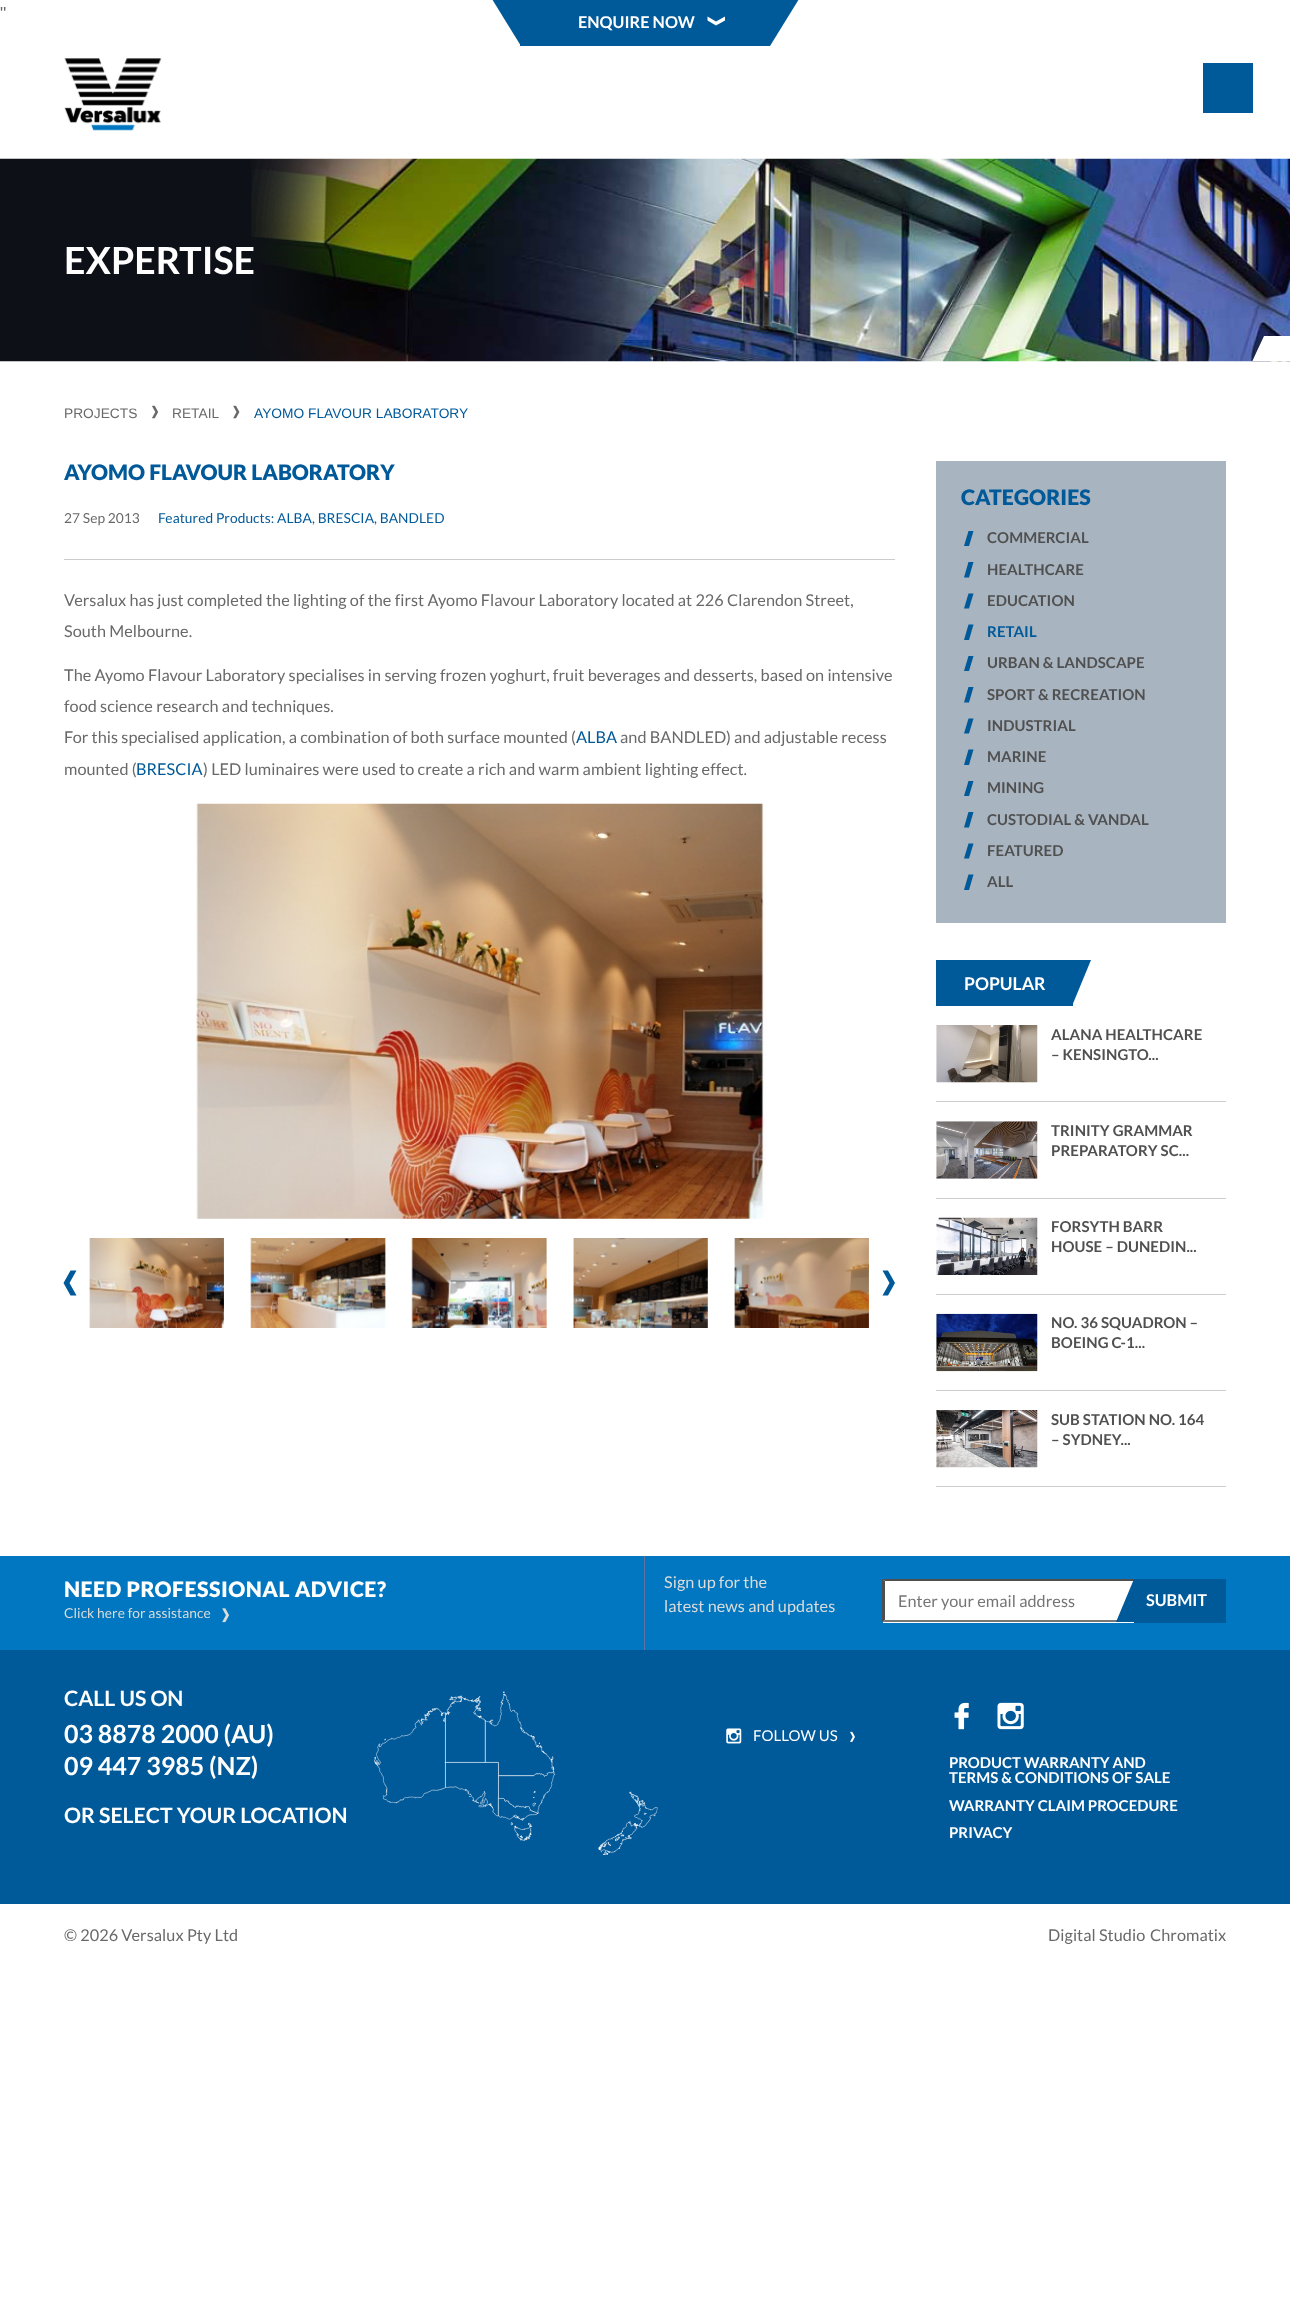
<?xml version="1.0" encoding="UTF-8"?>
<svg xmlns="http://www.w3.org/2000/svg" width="1290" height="2308">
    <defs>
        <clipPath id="clip1"><rect x="0" y="159" width="1290" height="202"/></clipPath>
    </defs>
    <rect width="100%" height="100%" fill="#FFFFFF"/>
    <text x="0" y="19" font-family="Liberation Sans" font-size="17.5" fill="#696969">"</text>
    <rect x="520" y="0" width="250" height="46" fill="#005999"/>
    <path d="M 492 -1 H 521 V 46 Z" fill="#005999"/>
    <text x="578" y="28" font-family="Lato" font-size="16.25" font-weight="700" fill="#FFFFFF">ENQUIRE NOW</text>
    <path d="M 707.5 16.5 L 716 21.5 L 725 16.5 V 20.5 L 716 25.5 L 707.5 20.5 Z" fill="#FFFFFF"/>
    <path d="M 770 -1 H 799 L 770 46 Z" fill="#005999"/>
    <rect x="1203" y="63" width="50" height="50" fill="#005999"/>
    <image x="64" y="58" width="98" height="73" href="img_01.png"/>
    <image x="0" y="158" width="1290" height="204" href="img_02.png"/>
    <text x="64" y="274" font-family="Lato" font-size="37.5" font-weight="700" fill="#FFFFFF">EXPERTISE</text>
    <rect x="1264" y="336" width="26" height="25" fill="#FFFFFF"/>
    <g clip-path="url(#clip1)">
        <path d="M 1264 411 H 1229 L 1264 336 Z" fill="#FFFFFF"/>
    </g>
    <text x="64" y="418" font-family="Liberation Sans" font-size="13.75" fill="#696969">PROJECTS</text>
    <image x="152" y="405" width="7" height="14" href="img_03.png"/>
    <text x="172" y="418" font-family="Liberation Sans" font-size="13.75" fill="#696969">RETAIL</text>
    <image x="233" y="405" width="7" height="14" href="img_04.png"/>
    <text x="254" y="418" font-family="Liberation Sans" font-size="13.75" fill="#005999">AYOMO FLAVOUR LABORATORY</text>
    <text x="64" y="480" font-family="Lato" font-size="21.25" font-weight="900" fill="#005999">AYOMO FLAVOUR LABORATORY</text>
    <rect x="64" y="559" width="831" height="1" fill="#CCCCCC"/>
    <text x="64" y="523" font-family="Lato" font-size="13.75" letter-spacing="0.06" fill="#696969">27 Sep 2013</text>
    <text x="158" y="523" font-family="Lato" font-size="13.75" letter-spacing="0.06" fill="#005999">Featured Products: ALBA, BRESCIA, BANDLED</text>
    <text font-family="Lato" font-size="16.25" letter-spacing="0.06" fill="#696969">
        <tspan x="64" y="606">Versalux has just completed the lighting of the first Ayomo Flavour Laboratory located at 226 Clarendon Street,</tspan>
        <tspan x="64" y="637">South Melbourne.</tspan>
    </text>
    <text font-family="Lato" font-size="16.25" letter-spacing="0.06" fill="#696969">
        <tspan x="64" y="681">The Ayomo Flavour Laboratory specialises in serving frozen yoghurt, fruit beverages and desserts, based on intensive</tspan>
        <tspan x="64" y="712">food science research and techniques.</tspan>
        <tspan x="64" y="743">For this specialised application, a combination of both surface mounted (</tspan>
    </text>
    <text x="576" y="743" font-family="Lato" font-size="16.25" letter-spacing="0.06" fill="#005999">ALBA</text>
    <text x="620" y="743" font-family="Lato" font-size="16.25" letter-spacing="0.06" fill="#696969">and BANDLED) and adjustable recess</text>
    <text x="64" y="775" font-family="Lato" font-size="16.25" letter-spacing="0.06" fill="#696969">mounted (</text>
    <text x="136" y="775" font-family="Lato" font-size="16.25" letter-spacing="0.06" fill="#005999">BRESCIA</text>
    <text x="203" y="775" font-family="Lato" font-size="16.25" letter-spacing="0.06" fill="#696969">) LED luminaires were used to create a rich and warm ambient lighting effect.</text>
    <image x="196" y="803" width="571" height="416" href="img_05.png"/>
    <path d="M 70.5 1295.5 L 63.5 1283 L 70.5 1270.5 H 76.5 L 69.5 1283 L 76.5 1295.5 Z" fill="#005999"/>
    <image x="89" y="1238" width="135" height="90" href="img_06.png"/>
    <image x="89" y="1238" width="135" height="90" href="img_07.png"/>
    <image x="250" y="1238" width="136" height="90" href="img_08.png"/>
    <image x="250" y="1238" width="136" height="90" href="img_09.png"/>
    <image x="411" y="1238" width="136" height="90" href="img_10.png"/>
    <image x="411" y="1238" width="136" height="90" href="img_11.png"/>
    <image x="573" y="1238" width="135" height="90" href="img_12.png"/>
    <image x="573" y="1238" width="135" height="90" href="img_13.png"/>
    <image x="734" y="1238" width="135" height="90" href="img_14.png"/>
    <image x="734" y="1238" width="135" height="90" href="img_15.png"/>
    <path d="M 882.5 1295.5 L 889.5 1283 L 882.5 1270.5 H 888 L 895 1283 L 888 1295.5 Z" fill="#005999"/>
    <rect x="936" y="461" width="290" height="462" fill="#A8B4BF"/>
    <text x="961" y="505" font-family="Lato" font-size="21.25" font-weight="900" letter-spacing="0.06" fill="#005999">CATEGORIES</text>
    <path d="M 968.5 531 H 973.5 L 969 546 H 964 Z" fill="#005999"/>
    <text x="987" y="543" font-family="Lato" font-size="15" font-weight="700" letter-spacing="0.06" fill="#505050">COMMERCIAL</text>
    <path d="M 968.5 562 H 973.5 L 969 577.5 H 964 Z" fill="#005999"/>
    <text x="987" y="575" font-family="Lato" font-size="15" font-weight="700" letter-spacing="0.06" fill="#505050">HEALTHCARE</text>
    <path d="M 968.5 593.5 H 973.5 L 969 608.5 H 964 Z" fill="#005999"/>
    <text x="987" y="606" font-family="Lato" font-size="15" font-weight="700" letter-spacing="0.06" fill="#505050">EDUCATION</text>
    <path d="M 968.5 624.5 H 973.5 L 969 640 H 964 Z" fill="#005999"/>
    <text x="987" y="637" font-family="Lato" font-size="15" font-weight="700" letter-spacing="0.06" fill="#005999">RETAIL</text>
    <path d="M 968.5 656 H 973.5 L 969 671 H 964 Z" fill="#005999"/>
    <text x="987" y="668" font-family="Lato" font-size="15" font-weight="700" letter-spacing="0.06" fill="#505050">URBAN &amp; LANDSCAPE</text>
    <path d="M 968.5 687 H 973.5 L 969 702.5 H 964 Z" fill="#005999"/>
    <text x="987" y="700" font-family="Lato" font-size="15" font-weight="700" letter-spacing="0.06" fill="#505050">SPORT &amp; RECREATION</text>
    <path d="M 968.5 718.5 H 973.5 L 969 733.5 H 964 Z" fill="#005999"/>
    <text x="987" y="731" font-family="Lato" font-size="15" font-weight="700" letter-spacing="0.06" fill="#505050">INDUSTRIAL</text>
    <path d="M 968.5 749.5 H 973.5 L 969 765 H 964 Z" fill="#005999"/>
    <text x="987" y="762" font-family="Lato" font-size="15" font-weight="700" letter-spacing="0.06" fill="#505050">MARINE</text>
    <path d="M 968.5 781 H 973.5 L 969 796 H 964 Z" fill="#005999"/>
    <text x="987" y="793" font-family="Lato" font-size="15" font-weight="700" letter-spacing="0.06" fill="#505050">MINING</text>
    <path d="M 968.5 812 H 973.5 L 969 827.5 H 964 Z" fill="#005999"/>
    <text x="987" y="825" font-family="Lato" font-size="15" font-weight="700" letter-spacing="0.06" fill="#505050">CUSTODIAL &amp; VANDAL</text>
    <path d="M 968.5 843.5 H 973.5 L 969 858.5 H 964 Z" fill="#005999"/>
    <text x="987" y="856" font-family="Lato" font-size="15" font-weight="700" letter-spacing="0.06" fill="#505050">FEATURED</text>
    <path d="M 968.5 874.5 H 973.5 L 969 890 H 964 Z" fill="#005999"/>
    <text x="987" y="887" font-family="Lato" font-size="15" font-weight="700" letter-spacing="0.06" fill="#505050">ALL</text>
    <rect x="936" y="960" width="137" height="46" fill="#005999"/>
    <text x="964" y="990" font-family="Lato" font-size="17.5" font-weight="700" fill="#FFFFFF">POPULAR</text>
    <path d="M 1072 960 H 1091 L 1072 1006 Z" fill="#005999"/>
    <rect x="936" y="1101" width="290" height="1" fill="#CCCCCC"/>
    <image x="936" y="1025" width="102" height="58" href="img_16.png"/>
    <text font-family="Lato" font-size="15" font-weight="700" letter-spacing="0.06" fill="#505050">
        <tspan x="1051" y="1040">ALANA HEALTHCARE</tspan>
        <tspan x="1051" y="1060">– KENSINGTO...</tspan>
    </text>
    <rect x="936" y="1198" width="290" height="1" fill="#CCCCCC"/>
    <image x="936" y="1121" width="102" height="58" href="img_17.png"/>
    <text font-family="Lato" font-size="15" font-weight="700" letter-spacing="0.06" fill="#505050">
        <tspan x="1051" y="1136">TRINITY GRAMMAR</tspan>
        <tspan x="1051" y="1156">PREPARATORY SC...</tspan>
    </text>
    <rect x="936" y="1294" width="290" height="1" fill="#CCCCCC"/>
    <image x="936" y="1217" width="102" height="58" href="img_18.png"/>
    <text font-family="Lato" font-size="15" font-weight="700" letter-spacing="0.06" fill="#505050">
        <tspan x="1051" y="1232">FORSYTH BARR</tspan>
        <tspan x="1051" y="1252">HOUSE – DUNEDIN...</tspan>
    </text>
    <rect x="936" y="1390" width="290" height="1" fill="#CCCCCC"/>
    <image x="936" y="1313" width="102" height="59" href="img_19.png"/>
    <text font-family="Lato" font-size="15" font-weight="700" letter-spacing="0.06" fill="#505050">
        <tspan x="1051" y="1328">NO. 36 SQUADRON –</tspan>
        <tspan x="1051" y="1348">BOEING C-1...</tspan>
    </text>
    <rect x="936" y="1486" width="290" height="1" fill="#CCCCCC"/>
    <image x="936" y="1410" width="102" height="58" href="img_20.png"/>
    <text font-family="Lato" font-size="15" font-weight="700" letter-spacing="0.06" fill="#505050">
        <tspan x="1051" y="1425">SUB STATION NO. 164</tspan>
        <tspan x="1051" y="1445">– SYDNEY...</tspan>
    </text>
    <rect x="0" y="1556" width="1290" height="94" fill="#0077C0"/>
    <rect x="644" y="1556" width="1" height="94" fill="#66729F"/>
    <text x="64" y="1597" font-family="Lato" font-size="21.25" font-weight="900" letter-spacing="0.5" fill="#FFFFFF">NEED PROFESSIONAL ADVICE?</text>
    <text x="64" y="1618" font-family="Lato" font-size="13.75" letter-spacing="0.06" fill="#DBDBDB">Click here for assistance</text>
    <image x="222" y="1608" width="7" height="15" href="img_21.png"/>
    <text font-family="Lato" font-size="16.25" letter-spacing="0.06" fill="#DBDBDB">
        <tspan x="664" y="1588">Sign up for the</tspan>
        <tspan x="664" y="1612">latest news and updates</tspan>
    </text>
    <rect x="883" y="1579" width="251" height="44" fill="#FFFFFF"/>
    <path d="M 882 1579 H 1226 L 1224 1581 H 885 Z" fill="#4F4F4F"/>
    <path d="M 1226 1622 H 882 L 885 1620 H 1224 Z" fill="#767676"/>
    <path d="M 882 1622 V 1579 L 885 1581 V 1620 Z" fill="#4F4F4F"/>
    <text x="898" y="1607" font-family="Lato" font-size="16.25" letter-spacing="0.06" fill="#757575">Enter your email address</text>
    <rect x="1134" y="1579" width="92" height="44" fill="#005999"/>
    <path d="M 1134 1622 H 1116 L 1134 1579 Z" fill="#005999"/>
    <text x="1146" y="1606" font-family="Lato" font-size="16.25" font-weight="700" fill="#FFFFFF">SUBMIT</text>
    <rect x="0" y="1650" width="1290" height="254" fill="#005999"/>
    <text x="64" y="1706" font-family="Lato" font-size="21.25" font-weight="700" fill="#FFFFFF">CALL US ON</text>
    <text font-family="Lato" font-size="25" font-weight="700" fill="#FFFFFF">
        <tspan x="64" y="1743">03 8878 2000 (AU)</tspan>
        <tspan x="64" y="1775">09 447 3985 (NZ)</tspan>
    </text>
    <text x="64" y="1823" font-family="Lato" font-size="21.25" font-weight="700" fill="#FFFFFF">OR SELECT YOUR LOCATION</text>
    <image x="374" y="1691" width="284" height="164" href="img_22.png"/>
    <image x="726" y="1728" width="16" height="16" href="img_23.png"/>
    <text x="753" y="1741" font-family="Lato" font-size="15" letter-spacing="0.06" fill="#FFFFFF">FOLLOW US</text>
    <image x="850" y="1731" width="5" height="11" href="img_24.png"/>
    <image x="954" y="1702" width="15" height="28" href="img_25.png"/>
    <image x="997" y="1702" width="27" height="28" href="img_26.png"/>
    <text font-family="Lato" font-size="15" font-weight="700" fill="#FFFFFF">
        <tspan x="949" y="1768">PRODUCT WARRANTY AND</tspan>
        <tspan x="949" y="1783">TERMS &amp; CONDITIONS OF SALE</tspan>
        <tspan x="949" y="1811">WARRANTY CLAIM PROCEDURE</tspan>
        <tspan x="949" y="1838">PRIVACY</tspan>
    </text>
    <text x="64" y="1941" font-family="Lato" font-size="16.25" letter-spacing="0.06" fill="#696969">© 2026 Versalux Pty Ltd</text>
    <text x="1048" y="1941" font-family="Lato" font-size="16.25" letter-spacing="0.06" fill="#696969">Digital Studio</text>
    <text x="1150" y="1941" font-family="Lato" font-size="16.25" letter-spacing="0.06" fill="#696969">Chromatix</text>
</svg>
